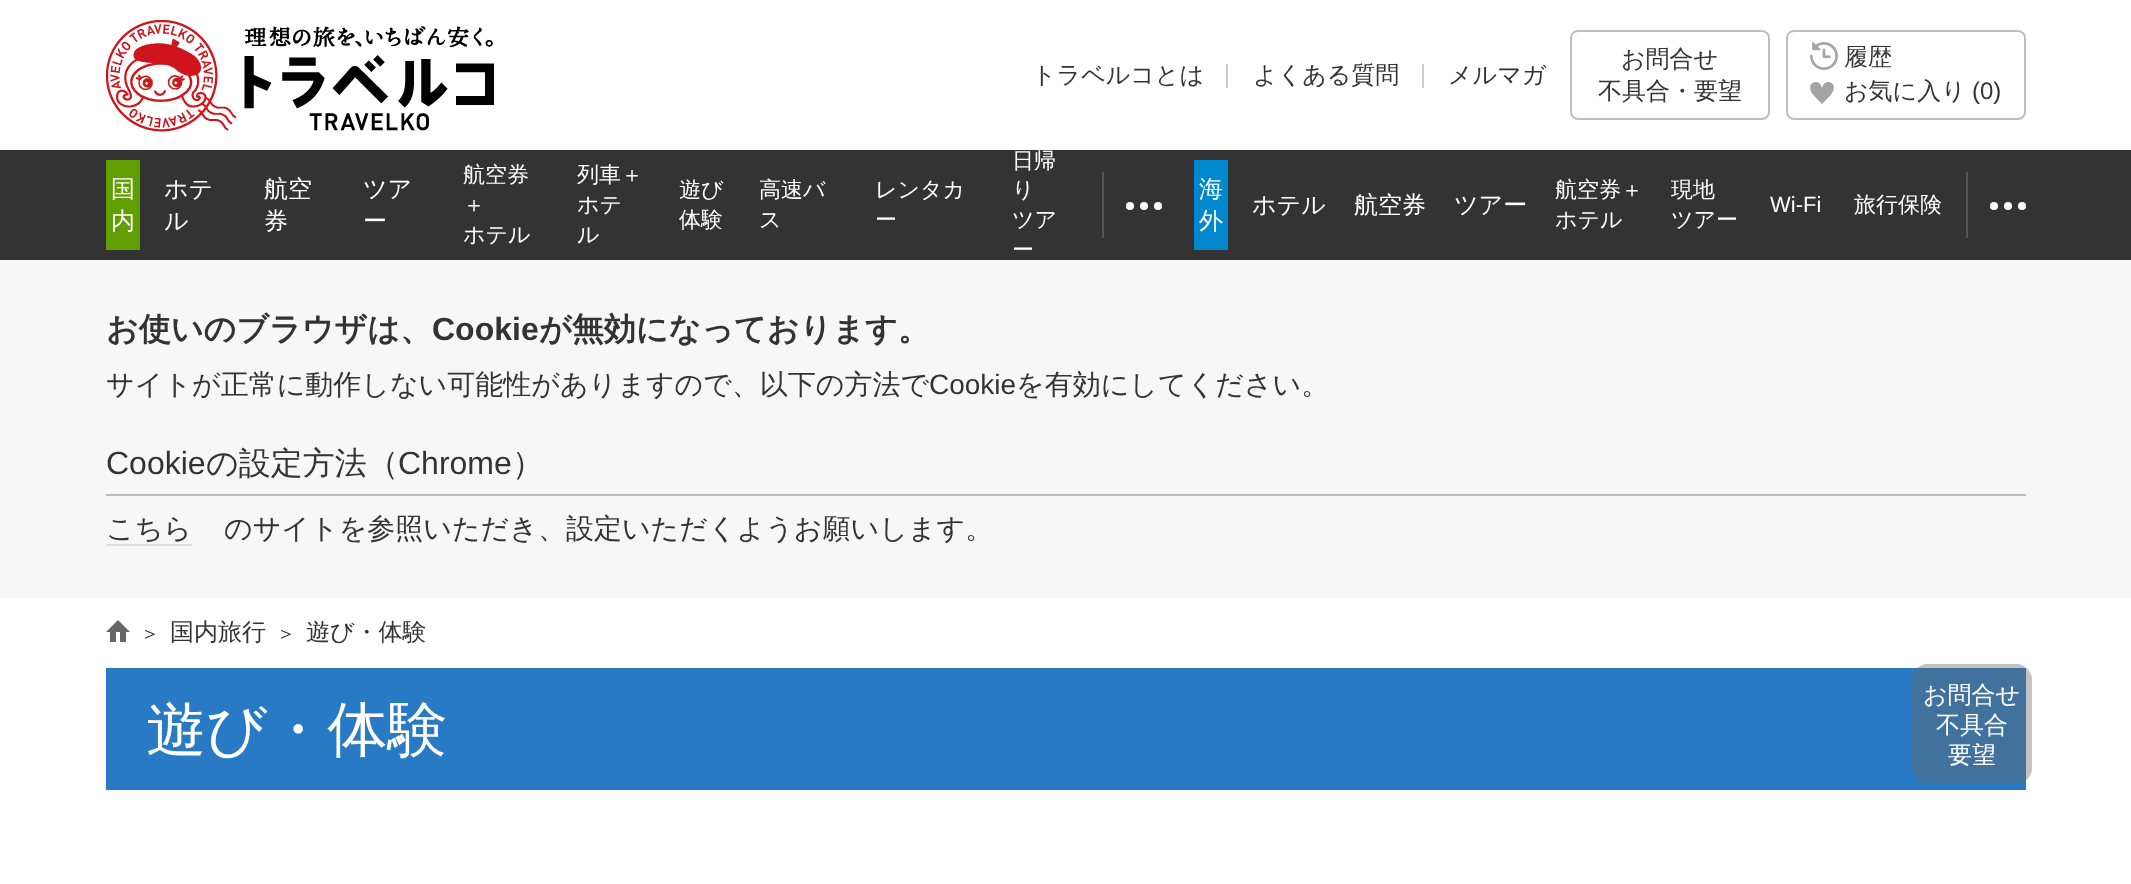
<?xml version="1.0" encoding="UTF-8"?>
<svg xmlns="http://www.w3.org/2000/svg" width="2131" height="884">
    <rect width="100%" height="100%" fill="#FFFFFF"/>
    <image x="106" y="20" width="388" height="112" href="img_01.png"/>
    <text x="1032" y="83" font-family="WenQuanYi Zen Hei" font-size="24" font-weight="500" fill="#333333">トラベルコとは</text>
    <rect x="1226" y="64" width="2" height="24" fill="#CCCCCC"/>
    <text x="1253" y="83" font-family="WenQuanYi Zen Hei" font-size="24" font-weight="500" fill="#333333">よくある質問</text>
    <rect x="1422" y="64" width="2" height="24" fill="#CCCCCC"/>
    <text x="1448" y="83" font-family="WenQuanYi Zen Hei" font-size="24" font-weight="500" fill="#333333">メルマガ</text>
    <rect x="1571" y="31" width="198" height="88" rx="7" fill="none" stroke="#BEBEBE" stroke-width="2"/>
    <text x="1621" y="67" font-family="WenQuanYi Zen Hei" font-size="24" font-weight="500" fill="#333333">お問合せ</text>
    <text x="1598" y="99" font-family="WenQuanYi Zen Hei" font-size="24" font-weight="500" fill="#333333">不具合・要望</text>
    <rect x="1787" y="31" width="238" height="88" rx="7" fill="none" stroke="#BEBEBE" stroke-width="2"/>
    <image x="1810" y="42" width="28" height="28" href="img_02.png"/>
    <text x="1844" y="65" font-family="WenQuanYi Zen Hei" font-size="24" font-weight="500" fill="#333333">履歴</text>
    <image x="1810" y="82" width="24" height="22" href="img_03.png"/>
    <text x="1844" y="99" font-family="WenQuanYi Zen Hei" font-size="24" font-weight="500" fill="#333333">お気に入り</text>
    <text x="1972" y="99" font-family="Liberation Sans" font-size="24" fill="#333333">(0)</text>
    <rect x="0" y="150" width="2131" height="110" fill="#333333"/>
    <rect x="106" y="160" width="34" height="90" fill="#619E00"/>
    <text font-family="WenQuanYi Zen Hei" font-size="24" font-weight="500" fill="#FFFFFF">
        <tspan x="111" y="197">国</tspan>
        <tspan x="111" y="229">内</tspan>
    </text>
    <text font-family="WenQuanYi Zen Hei" font-size="24" font-weight="500" fill="#FFFFFF">
        <tspan x="164" y="197">ホテ</tspan>
        <tspan x="164" y="229">ル</tspan>
    </text>
    <text font-family="WenQuanYi Zen Hei" font-size="24" font-weight="500" fill="#FFFFFF">
        <tspan x="264" y="197">航空</tspan>
        <tspan x="264" y="229">券</tspan>
    </text>
    <text font-family="WenQuanYi Zen Hei" font-size="24" font-weight="500" fill="#FFFFFF">
        <tspan x="363" y="197">ツア</tspan>
        <tspan x="363" y="229">ー</tspan>
    </text>
    <text font-family="WenQuanYi Zen Hei" font-size="22" font-weight="500" fill="#FFFFFF">
        <tspan x="463" y="182">航空券</tspan>
        <tspan x="463" y="212">＋</tspan>
        <tspan x="463" y="242">ホテル</tspan>
    </text>
    <text font-family="WenQuanYi Zen Hei" font-size="22" font-weight="500" fill="#FFFFFF">
        <tspan x="577" y="182">列車＋</tspan>
        <tspan x="577" y="212">ホテ</tspan>
        <tspan x="577" y="242">ル</tspan>
    </text>
    <text font-family="WenQuanYi Zen Hei" font-size="22" font-weight="500" fill="#FFFFFF">
        <tspan x="679" y="197">遊び</tspan>
        <tspan x="679" y="227">体験</tspan>
    </text>
    <text font-family="WenQuanYi Zen Hei" font-size="22" font-weight="500" fill="#FFFFFF">
        <tspan x="759" y="197">高速バ</tspan>
        <tspan x="759" y="227">ス</tspan>
    </text>
    <text font-family="WenQuanYi Zen Hei" font-size="22" font-weight="500" fill="#FFFFFF">
        <tspan x="875" y="197">レンタカ</tspan>
        <tspan x="875" y="227">ー</tspan>
    </text>
    <text font-family="WenQuanYi Zen Hei" font-size="22" font-weight="500" fill="#FFFFFF">
        <tspan x="1012" y="168">日帰</tspan>
        <tspan x="1012" y="197">り</tspan>
        <tspan x="1012" y="227">ツア</tspan>
        <tspan x="1012" y="257">ー</tspan>
    </text>
    <rect x="1102" y="172" width="2" height="66" fill="#555555"/>
    <circle cx="1130" cy="206" r="4" fill="#FFFFFF"/>
    <circle cx="1144" cy="206" r="4" fill="#FFFFFF"/>
    <circle cx="1158" cy="206" r="4" fill="#FFFFFF"/>
    <rect x="1194" y="160" width="34" height="90" fill="#0088CE"/>
    <text font-family="WenQuanYi Zen Hei" font-size="24" font-weight="500" fill="#FFFFFF">
        <tspan x="1199" y="197">海</tspan>
        <tspan x="1199" y="229">外</tspan>
    </text>
    <text x="1252" y="213" font-family="WenQuanYi Zen Hei" font-size="24" font-weight="500" fill="#FFFFFF">ホテル</text>
    <text x="1354" y="213" font-family="WenQuanYi Zen Hei" font-size="24" font-weight="500" fill="#FFFFFF">航空券</text>
    <text x="1454" y="213" font-family="WenQuanYi Zen Hei" font-size="24" font-weight="500" fill="#FFFFFF">ツアー</text>
    <text font-family="WenQuanYi Zen Hei" font-size="22" font-weight="500" fill="#FFFFFF">
        <tspan x="1555" y="197">航空券＋</tspan>
        <tspan x="1555" y="227">ホテル</tspan>
    </text>
    <text font-family="WenQuanYi Zen Hei" font-size="22" font-weight="500" fill="#FFFFFF">
        <tspan x="1671" y="197">現地</tspan>
        <tspan x="1671" y="227">ツアー</tspan>
    </text>
    <text x="1770" y="212" font-family="Liberation Sans" font-size="22" fill="#FFFFFF">Wi-Fi</text>
    <text x="1854" y="212" font-family="WenQuanYi Zen Hei" font-size="22" font-weight="500" fill="#FFFFFF">旅行保険</text>
    <rect x="1966" y="172" width="2" height="66" fill="#555555"/>
    <circle cx="1994" cy="206" r="4" fill="#FFFFFF"/>
    <circle cx="2008" cy="206" r="4" fill="#FFFFFF"/>
    <circle cx="2022" cy="206" r="4" fill="#FFFFFF"/>
    <rect x="0" y="260" width="2131" height="338" fill="#F7F7F7"/>
    <text x="106" y="340" font-family="WenQuanYi Zen Hei" font-size="32" font-weight="700" fill="#333333">お使いのブラウザは、</text>
    <text x="432" y="340" font-family="Liberation Sans" font-size="32" font-weight="700" fill="#333333">Cookie</text>
    <text x="539" y="340" font-family="WenQuanYi Zen Hei" font-size="32" font-weight="700" fill="#333333">が無効になっております。</text>
    <text x="106" y="394" font-family="WenQuanYi Zen Hei" font-size="28" font-weight="500" fill="#333333">サイトが正常に動作しない可能性がありますので、以下の方法で</text>
    <text x="929" y="394" font-family="Liberation Sans" font-size="28" fill="#333333">Cookie</text>
    <text x="1016" y="394" font-family="WenQuanYi Zen Hei" font-size="28" font-weight="500" fill="#333333">を有効にしてください。</text>
    <rect x="106" y="494" width="1920" height="2" fill="#BEBEBE"/>
    <text x="106" y="474" font-family="Liberation Sans" font-size="32" fill="#333333">Cookie</text>
    <text x="206" y="474" font-family="WenQuanYi Zen Hei" font-size="32" font-weight="500" fill="#333333">の設定方法（</text>
    <text x="398" y="474" font-family="Liberation Sans" font-size="32" fill="#333333">Chrome</text>
    <text x="512" y="474" font-family="WenQuanYi Zen Hei" font-size="32" font-weight="500" fill="#333333">）</text>
    <text x="106" y="538" font-family="WenQuanYi Zen Hei" font-size="28" font-weight="500" fill="#333333">こちら</text>
    <rect x="106" y="544" width="86" height="2" fill="#DDDDDD"/>
    <text x="224" y="538" font-family="WenQuanYi Zen Hei" font-size="28" font-weight="500" fill="#333333">のサイトを参照いただき、設定いただくようお願いします。</text>
    <path d="M 130 632 H 106 L 118 620 Z" fill="#666666"/>
    <rect x="120" y="632" width="6" height="10" fill="#666666"/>
    <rect x="110" y="632" width="6" height="10" fill="#666666"/>
    <text x="140" y="640" font-family="WenQuanYi Zen Hei" font-size="20" font-weight="500" fill="#333333">＞</text>
    <text x="170" y="640" font-family="WenQuanYi Zen Hei" font-size="24" font-weight="500" fill="#333333">国内旅行</text>
    <text x="276" y="640" font-family="WenQuanYi Zen Hei" font-size="20" font-weight="500" fill="#333333">＞</text>
    <text x="306" y="640" font-family="WenQuanYi Zen Hei" font-size="24" font-weight="500" fill="#333333">遊び・体験</text>
    <rect x="106" y="668" width="1920" height="122" fill="#287AC4"/>
    <text x="146" y="750" font-family="WenQuanYi Zen Hei" font-size="60" font-weight="500" fill="#FFFFFF">遊び・体験</text>
    <rect x="1912" y="664" width="120" height="120" rx="16" fill="#666666" fill-opacity="0.4"/>
    <text x="1923" y="703" font-family="WenQuanYi Zen Hei" font-size="24" font-weight="500" fill="#FFFFFF">お問合せ</text>
    <text x="1936" y="733" font-family="WenQuanYi Zen Hei" font-size="24" font-weight="500" fill="#FFFFFF">不具合</text>
    <text x="1948" y="763" font-family="WenQuanYi Zen Hei" font-size="24" font-weight="500" fill="#FFFFFF">要望</text>
</svg>
